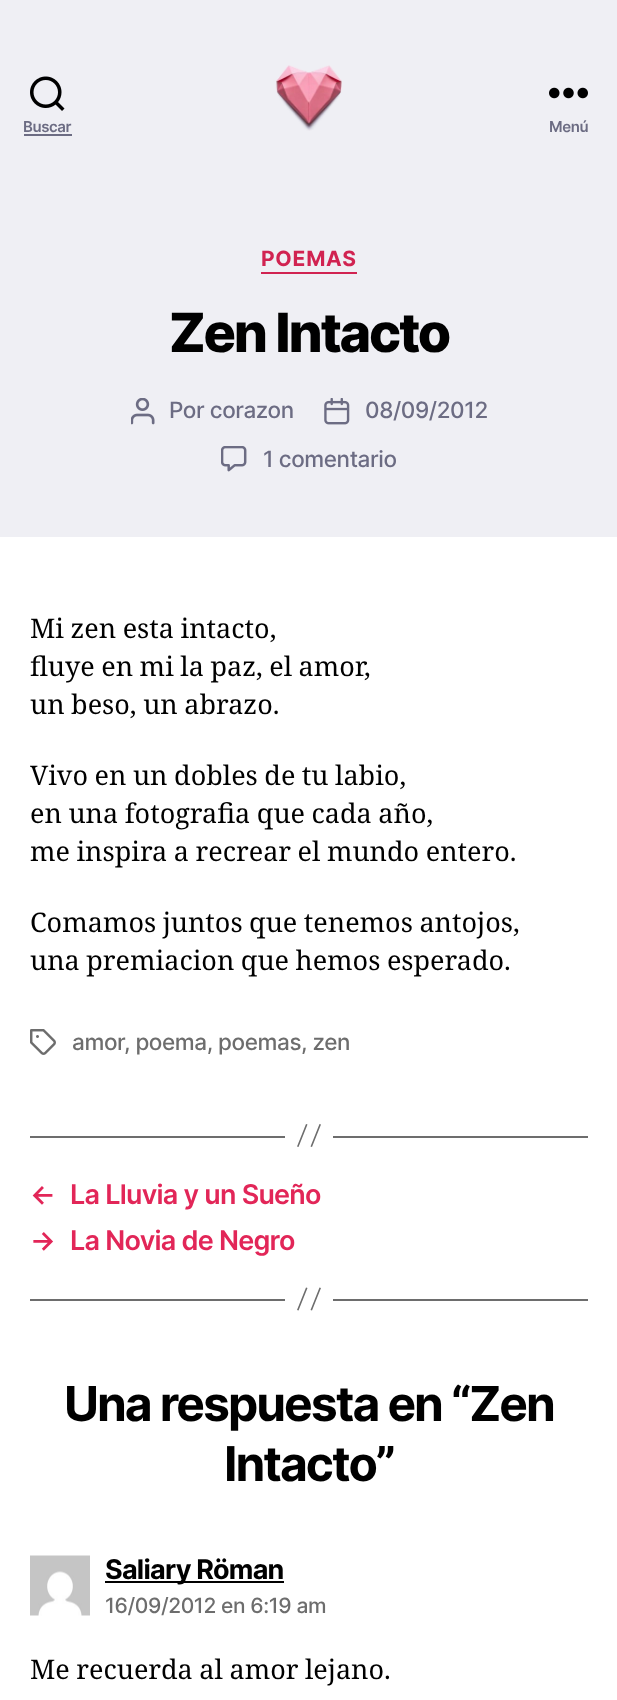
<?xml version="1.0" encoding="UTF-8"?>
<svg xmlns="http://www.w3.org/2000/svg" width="617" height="1700">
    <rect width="100%" height="100%" fill="#FFFFFF"/>
    <rect x="0" y="0" width="617" height="537" fill="#EFEFF4"/>
    <image x="30" y="76" width="35" height="35" href="img_01.png"/>
    <text x="23" y="132" font-family="Inter" font-size="15" font-weight="600" letter-spacing="-0.4" fill="#6C6C83">Buscar</text>
    <rect x="24" y="134" width="48" height="2" fill="#6C6C83"/>
    <image x="275" y="65" width="67" height="66" href="img_02.png"/>
    <image x="549" y="87" width="39" height="12" href="img_03.png"/>
    <text x="549" y="132" font-family="Inter" font-size="15" font-weight="600" letter-spacing="-0.4" fill="#6C6C83">Menú</text>
    <rect x="261" y="272" width="96" height="2" fill="#D12351"/>
    <text x="261" y="266" font-family="Inter" font-size="21" font-weight="700" letter-spacing="0.75" fill="#D12351">POEMAS</text>
    <text x="169" y="352" font-family="Inter" font-size="54" font-weight="800" letter-spacing="-2.25" fill="#000000">Zen Intacto</text>
    <image x="131" y="398" width="24" height="27" href="img_04.png"/>
    <text x="169" y="418" font-family="Inter" font-size="22.5" font-weight="500" letter-spacing="-0.4" fill="#6C6C83">Por corazon</text>
    <image x="324" y="398" width="26" height="27" href="img_05.png"/>
    <text x="365" y="418" font-family="Inter" font-size="22.5" font-weight="500" letter-spacing="-0.4" fill="#6C6C83">08/09/2012</text>
    <image x="221" y="446" width="26" height="26" href="img_06.png"/>
    <text x="263" y="467" font-family="Inter" font-size="22.5" font-weight="500" letter-spacing="-0.4" fill="#6C6C83">1 comentario</text>
    <text font-family="Noto Serif" font-size="27" fill="#000000">
        <tspan x="30" y="638" word-spacing="-0.5">Mi zen esta intacto,</tspan>
        <tspan x="30" y="676" word-spacing="-0.5">fluye en mi la paz, el amor,</tspan>
        <tspan x="30" y="714" word-spacing="-0.5">un beso, un abrazo.</tspan>
    </text>
    <text font-family="Noto Serif" font-size="27" fill="#000000">
        <tspan x="30" y="785" word-spacing="-0.5">Vivo en un dobles de tu labio,</tspan>
        <tspan x="30" y="823" word-spacing="-0.5">en una fotografia que cada año,</tspan>
        <tspan x="30" y="861" word-spacing="-0.5">me inspira a recrear el mundo entero.</tspan>
    </text>
    <text font-family="Noto Serif" font-size="27" fill="#000000">
        <tspan x="30" y="932" word-spacing="-0.5">Comamos juntos que tenemos antojos,</tspan>
        <tspan x="30" y="970" word-spacing="-0.5">una premiacion que hemos esperado.</tspan>
    </text>
    <image x="30" y="1029" width="26" height="26" href="img_07.png"/>
    <text x="72" y="1050" font-family="Inter" font-size="22.5" font-weight="500" letter-spacing="-0.4" fill="#6D6D6D">amor</text>
    <text x="124" y="1050" font-family="Inter" font-size="22.5" font-weight="500" letter-spacing="-0.4" fill="#6D6D6D">, poema, poemas, zen</text>
    <rect x="333" y="1136" width="255" height="2" fill="#6D6D6D"/>
    <rect x="30" y="1136" width="255" height="2" fill="#6D6D6D"/>
    <path d="M 306 1124 L 307.5 1124.5 L 298.5 1147 L 297 1146.5 Z M 319.5 1124 L 321 1124.5 L 312 1147 L 310.5 1146.5 Z" fill="#6D6D6D"/>
    <text x="30" y="1204" font-family="Inter" font-size="27" font-weight="600" letter-spacing="-0.75" fill="#E22658">←</text>
    <text x="70" y="1204" font-family="Inter" font-size="27" font-weight="600" letter-spacing="-0.75" fill="#E22658">La Lluvia y un Sueño</text>
    <text x="30" y="1250" font-family="Inter" font-size="27" font-weight="600" letter-spacing="-0.75" fill="#E22658">→</text>
    <text x="70" y="1250" font-family="Inter" font-size="27" font-weight="600" letter-spacing="-0.75" fill="#E22658">La Novia de Negro</text>
    <rect x="333" y="1299" width="255" height="2" fill="#6D6D6D"/>
    <rect x="30" y="1299" width="255" height="2" fill="#6D6D6D"/>
    <path d="M 306 1287.5 L 307.5 1288 L 298.5 1310.5 L 297 1310 Z M 319.5 1287.5 L 321 1288 L 312 1310.5 L 310.5 1310 Z" fill="#6D6D6D"/>
    <text x="64" y="1421" font-family="Inter" font-size="48" font-weight="700" letter-spacing="-2" fill="#000000">Una respuesta en “Zen</text>
    <text x="224" y="1481" font-family="Inter" font-size="48" font-weight="700" letter-spacing="-2" fill="#000000">Intacto”</text>
    <image x="30" y="1555" width="60" height="61" href="img_08.png"/>
    <rect x="105" y="1581" width="179" height="2" fill="#000000"/>
    <text x="105" y="1579" font-family="Inter" font-size="27" font-weight="700" letter-spacing="-0.75" fill="#000000">Saliary Röman</text>
    <text x="105" y="1613" font-family="Inter" font-size="21" font-weight="500" letter-spacing="-0.4" fill="#6D6D6D">16/09/2012 en 6:19 am</text>
    <text x="30" y="1679" word-spacing="-0.5" font-family="Noto Serif" font-size="27" fill="#000000">Me recuerda al amor lejano.</text>
</svg>
